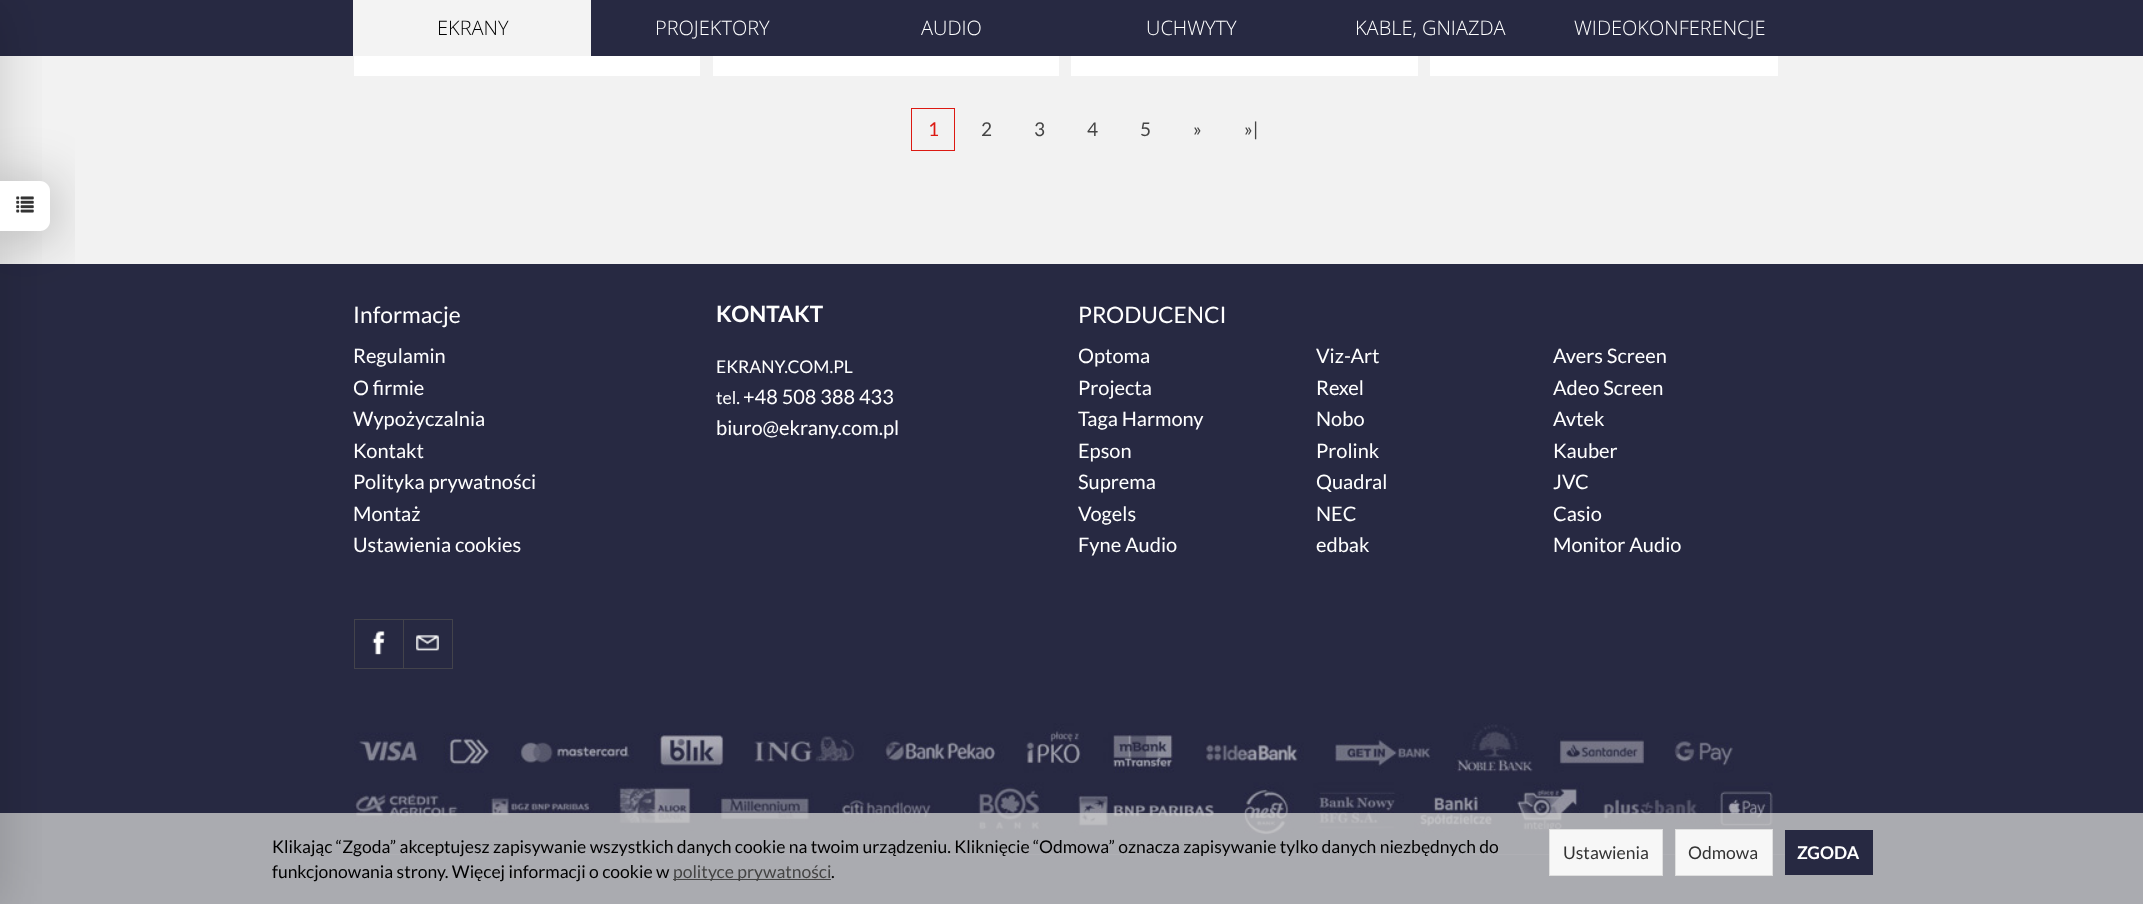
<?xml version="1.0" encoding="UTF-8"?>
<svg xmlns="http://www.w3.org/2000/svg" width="2143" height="904">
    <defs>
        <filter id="blur1" x="-50%" y="-200%" width="200%" height="500%"><feGaussianBlur stdDeviation="27.5"/></filter>
        <filter id="blur2" x="-50%" y="-200%" width="200%" height="500%"><feGaussianBlur stdDeviation="28"/></filter>
    </defs>
    <rect width="100%" height="100%" fill="#F2F2F2"/>
    <rect x="0" y="0" width="2143" height="56" fill="#272942"/>
    <rect x="0" y="264" width="2143" height="640" fill="#272942"/>
    <image x="354" y="723" width="1419" height="112" href="img_04.png"/>
    <rect x="354" y="854" width="1437" height="1" fill="#3D3E55"/>
    <rect x="0" y="813" width="2143" height="91" fill="#CCCCCC" fill-opacity="0.8"/>
    <rect x="-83" y="5" width="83" height="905" fill="#000000" fill-opacity="0.17" filter="url(#blur1)"/>
    <rect x="0" y="186" width="50" height="50" rx="10" fill="#000000" fill-opacity="0.35" filter="url(#blur2)"/>
    <path d="M 0 181 H 40 C 45.5 181 50 185.5 50 191 V 221 C 50 226.5 45.5 231 40 231 H 0 Z" fill="#FFFFFF"/>
    <image x="16" y="196" width="18" height="17" href="img_01.png"/>
    <rect x="353" y="0" width="238" height="56" fill="#F3F3F3"/>
    <text x="437" y="35" font-family="Open Sans" font-size="20" font-weight="300" fill="#000000">EKRANY</text>
    <text x="655" y="35" font-family="Open Sans" font-size="20" font-weight="300" fill="#FFFFFF">PROJEKTORY</text>
    <text x="921" y="35" font-family="Open Sans" font-size="20" font-weight="300" fill="#FFFFFF">AUDIO</text>
    <text x="1146" y="35" font-family="Open Sans" font-size="20" font-weight="300" fill="#FFFFFF">UCHWYTY</text>
    <text x="1355" y="35" font-family="Open Sans" font-size="20" font-weight="300" fill="#FFFFFF">KABLE, GNIAZDA</text>
    <text x="1574" y="35" font-family="Open Sans" font-size="20" font-weight="300" fill="#FFFFFF">WIDEOKONFERENCJE</text>
    <rect x="354" y="56" width="346" height="20" fill="#FFFFFF"/>
    <rect x="713" y="56" width="346" height="20" fill="#FFFFFF"/>
    <rect x="1071" y="56" width="347" height="20" fill="#FFFFFF"/>
    <rect x="1430" y="56" width="348" height="20" fill="#FFFFFF"/>
    <rect x="911.5" y="108.5" width="43" height="42" fill="none" stroke="#DC1912"/>
    <text x="928" y="136" font-family="Lato" font-size="19" fill="#DC1912">1</text>
    <text x="981" y="136" font-family="Lato" font-size="19" fill="#444444">2</text>
    <text x="1034" y="136" font-family="Lato" font-size="19" fill="#444444">3</text>
    <text x="1087" y="136" font-family="Lato" font-size="19" fill="#444444">4</text>
    <text x="1140" y="136" font-family="Lato" font-size="19" fill="#444444">5</text>
    <text x="1193" y="136" font-family="Lato" font-size="19" fill="#444444">»</text>
    <text x="1244" y="136" font-family="Lato" font-size="19" fill="#444444">»|</text>
    <text x="353" y="323" font-family="Lato" font-size="22.75" fill="#FFFFFF">Informacje</text>
    <text font-family="Lato" font-size="20" fill="#FFFFFF">
        <tspan x="353" y="363">Regulamin</tspan>
        <tspan x="353" y="395">O firmie</tspan>
        <tspan x="353" y="426">Wypożyczalnia</tspan>
        <tspan x="353" y="458">Kontakt</tspan>
        <tspan x="353" y="489">Polityka prywatności</tspan>
        <tspan x="353" y="521">Montaż</tspan>
        <tspan x="353" y="552">Ustawienia cookies</tspan>
    </text>
    <text x="716" y="322" font-family="Lato" font-size="22.5" font-weight="700" fill="#FFFFFF">KONTAKT</text>
    <text font-family="Lato" font-size="17.5" fill="#FFFFFF">
        <tspan x="716" y="373">EKRANY.COM.PL</tspan>
        <tspan x="716" y="404">tel.</tspan>
    </text>
    <text x="743" y="404" font-family="Lato" font-size="20" fill="#FFFFFF">+48 508 388 433</text>
    <text x="716" y="435" font-family="Lato" font-size="20" fill="#FFFFFF">biuro@ekrany.com.pl</text>
    <text x="1078" y="323" font-family="Lato" font-size="22.75" fill="#FFFFFF">PRODUCENCI</text>
    <text x="1078" y="363" font-family="Lato" font-size="20" fill="#FFFFFF">Optoma</text>
    <text x="1316" y="363" font-family="Lato" font-size="20" fill="#FFFFFF">Viz-Art</text>
    <text x="1553" y="363" font-family="Lato" font-size="20" fill="#FFFFFF">Avers Screen</text>
    <text x="1078" y="395" font-family="Lato" font-size="20" fill="#FFFFFF">Projecta</text>
    <text x="1316" y="395" font-family="Lato" font-size="20" fill="#FFFFFF">Rexel</text>
    <text x="1553" y="395" font-family="Lato" font-size="20" fill="#FFFFFF">Adeo Screen</text>
    <text x="1078" y="426" font-family="Lato" font-size="20" fill="#FFFFFF">Taga Harmony</text>
    <text x="1316" y="426" font-family="Lato" font-size="20" fill="#FFFFFF">Nobo</text>
    <text x="1553" y="426" font-family="Lato" font-size="20" fill="#FFFFFF">Avtek</text>
    <text x="1078" y="458" font-family="Lato" font-size="20" fill="#FFFFFF">Epson</text>
    <text x="1316" y="458" font-family="Lato" font-size="20" fill="#FFFFFF">Prolink</text>
    <text x="1553" y="458" font-family="Lato" font-size="20" fill="#FFFFFF">Kauber</text>
    <text x="1078" y="489" font-family="Lato" font-size="20" fill="#FFFFFF">Suprema</text>
    <text x="1316" y="489" font-family="Lato" font-size="20" fill="#FFFFFF">Quadral</text>
    <text x="1553" y="489" font-family="Lato" font-size="20" fill="#FFFFFF">JVC</text>
    <text x="1078" y="521" font-family="Lato" font-size="20" fill="#FFFFFF">Vogels</text>
    <text x="1316" y="521" font-family="Lato" font-size="20" fill="#FFFFFF">NEC</text>
    <text x="1553" y="521" font-family="Lato" font-size="20" fill="#FFFFFF">Casio</text>
    <text x="1078" y="552" font-family="Lato" font-size="20" fill="#FFFFFF">Fyne Audio</text>
    <text x="1316" y="552" font-family="Lato" font-size="20" fill="#FFFFFF">edbak</text>
    <text x="1553" y="552" font-family="Lato" font-size="20" fill="#FFFFFF">Monitor Audio</text>
    <rect x="354.5" y="619.5" width="49" height="49" fill="none" stroke="#43434B"/>
    <image x="372" y="631" width="13" height="24" href="img_02.png"/>
    <rect x="403.5" y="619.5" width="49" height="49" fill="none" stroke="#43434B"/>
    <image x="416" y="635" width="23" height="16" href="img_03.png"/>
    <text font-family="Lato" font-size="17.5" fill="#000000">
        <tspan x="272" y="853">Klikając “Zgoda” akceptujesz zapisywanie wszystkich danych cookie na twoim urządzeniu. Kliknięcie “Odmowa” oznacza zapisywanie tylko danych niezbędnych do</tspan>
        <tspan x="272" y="878">funkcjonowania strony. Więcej informacji o cookie w</tspan>
    </text>
    <rect x="673" y="879" width="158" height="1" fill="#444444"/>
    <text x="673" y="878" font-family="Lato" font-size="17.5" fill="#444444">polityce prywatności</text>
    <text x="831" y="878" font-family="Lato" font-size="17.5" fill="#000000">.</text>
    <rect x="1549.5" y="829.5" width="113" height="46" fill="#F7F7F7" stroke="#DFDFDF"/>
    <text x="1563" y="859" font-family="Lato" font-size="17.5" fill="#333333">Ustawienia</text>
    <rect x="1675.5" y="829.5" width="97" height="46" fill="#F7F7F7" stroke="#DFDFDF"/>
    <text x="1688" y="859" font-family="Lato" font-size="17.5" fill="#333333">Odmowa</text>
    <rect x="1785" y="830" width="88" height="45" fill="#272942"/>
    <text x="1797" y="859" font-family="Lato" font-size="17.5" font-weight="700" fill="#FFFFFF">ZGODA</text>
</svg>
